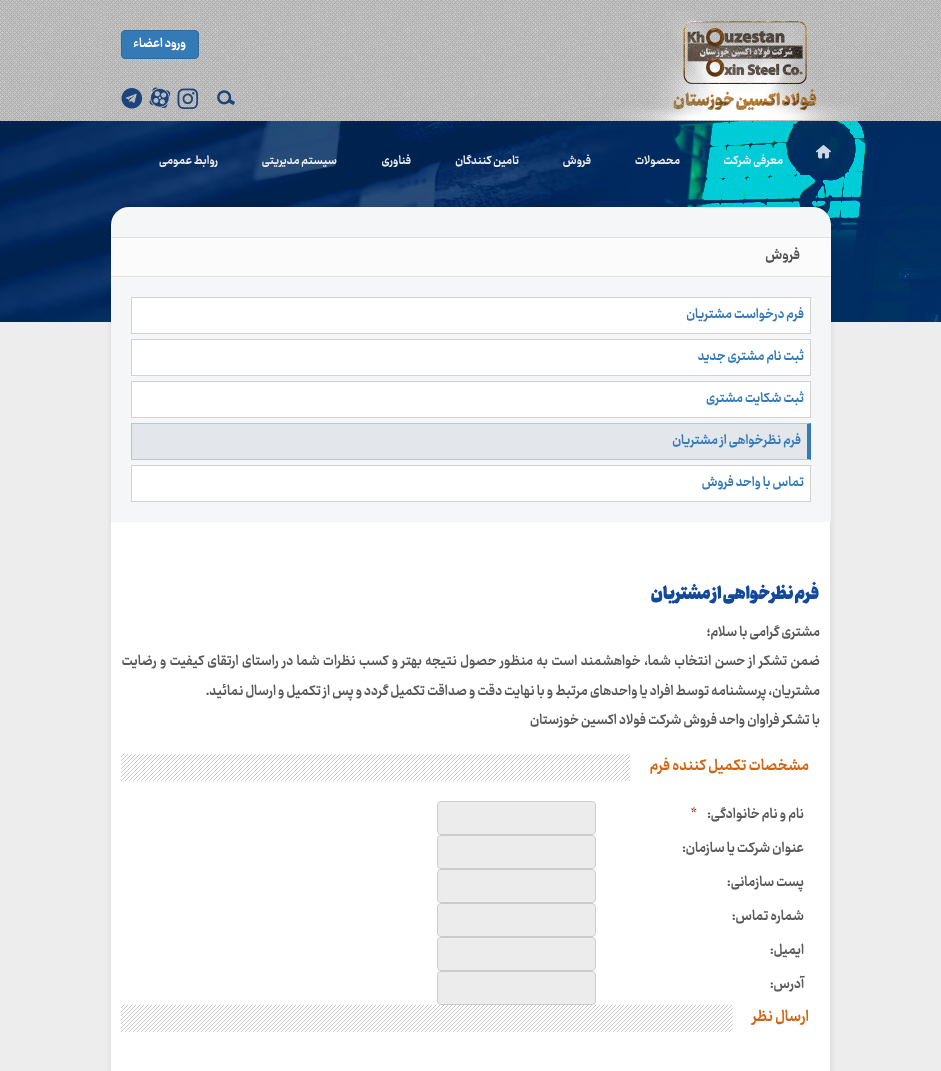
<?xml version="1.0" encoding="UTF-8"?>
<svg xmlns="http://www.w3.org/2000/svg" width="941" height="1071">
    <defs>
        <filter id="blur1" x="-50%" y="-200%" width="200%" height="500%"><feGaussianBlur stdDeviation="1.5"/></filter>
    </defs>
    <rect width="100%" height="100%" fill="#EDEDED"/>
    <image x="0" y="0" width="941" height="121" href="img_01.png"/>
    <image x="101" y="0" width="740" height="121" href="img_02.png"/>
    <image x="612" y="11" width="246" height="109" href="img_03.png"/>
    <image x="673" y="21" width="144" height="90" href="img_04.png"/>
    <rect x="121.5" y="30.5" width="77" height="28" rx="3.5" fill="#337AB7" stroke="#2E6DA4"/>
    <text x="186" y="47" font-family="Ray" font-size="14" font-weight="800" direction="rtl" fill="#FFFFFF">ورود اعضاء</text>
    <image x="217" y="90" width="18" height="15" href="img_05.png"/>
    <image x="177" y="88" width="21" height="21" href="img_06.png"/>
    <image x="149" y="87" width="21" height="21" href="img_07.png"/>
    <image x="121" y="88" width="21" height="21" href="img_08.png"/>
    <image x="0" y="121" width="941" height="201" href="img_09.png"/>
    <image x="816" y="145" width="15" height="14" href="img_10.png"/>
    <text x="783" y="164" font-family="Ray" font-size="13" font-weight="800" direction="rtl" fill="#EDEDED">معرفی شرکت</text>
    <text x="680" y="164" font-family="Ray" font-size="13" font-weight="800" direction="rtl" fill="#EDEDED">محصولات</text>
    <text x="591" y="164" font-family="Ray" font-size="13" font-weight="800" direction="rtl" fill="#EDEDED">فروش</text>
    <text x="519" y="164" font-family="Ray" font-size="13" font-weight="800" direction="rtl" fill="#EDEDED">تامین کنندگان</text>
    <text x="411" y="164" font-family="Ray" font-size="13" font-weight="800" direction="rtl" fill="#EDEDED">فناوری</text>
    <text x="337" y="164" font-family="Ray" font-size="13" font-weight="800" direction="rtl" fill="#EDEDED">سیستم مدیریتی</text>
    <text x="218" y="164" font-family="Ray" font-size="13" font-weight="800" direction="rtl" fill="#EDEDED">روابط عمومی</text>
    <rect x="109" y="205" width="724" height="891" rx="20" fill="#000000" fill-opacity="0.05" filter="url(#blur1)"/>
    <rect x="111" y="207" width="720" height="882" rx="18" fill="#F5F6F7"/>
    <rect x="111" y="238" width="720" height="38" fill="#FBFBFB"/>
    <rect x="111" y="237" width="720" height="1" fill="#E0E0E0"/>
    <rect x="111" y="276" width="720" height="1" fill="#E0E0E0"/>
    <text x="800" y="259" font-family="Ray" font-size="16" font-weight="800" direction="rtl" fill="#525252">فروش</text>
    <rect x="131.5" y="297.5" width="679" height="36" fill="#FFFFFF" stroke="#D2D2D2"/>
    <text x="804" y="318" font-family="Ray" font-size="14.75" font-weight="800" direction="rtl" fill="#337AB7">فرم درخواست مشتریان</text>
    <rect x="131.5" y="339.5" width="679" height="36" fill="#FFFFFF" stroke="#D2D2D2"/>
    <text x="804" y="360" font-family="Ray" font-size="14.75" font-weight="800" direction="rtl" fill="#337AB7">ثبت نام مشتری جدید</text>
    <rect x="131.5" y="381.5" width="679" height="36" fill="#FFFFFF" stroke="#D2D2D2"/>
    <text x="804" y="402" font-family="Ray" font-size="14.75" font-weight="800" direction="rtl" fill="#337AB7">ثبت شکایت مشتری</text>
    <rect x="132" y="424" width="675" height="35" fill="#E3E6EA"/>
    <path d="M 131 423 H 811 L 807 424 H 132 Z" fill="#BAC4D2"/>
    <path d="M 811 423 V 460 L 807 459 V 424 Z" fill="#337AB7"/>
    <path d="M 811 460 H 131 L 132 459 H 807 Z" fill="#BAC4D2"/>
    <rect x="131" y="423" width="1" height="37" fill="#BAC4D2"/>
    <text x="801" y="444" font-family="Ray" font-size="14.75" font-weight="800" direction="rtl" fill="#337AB7">فرم نظرخواهی از مشتریان</text>
    <rect x="131.5" y="465.5" width="679" height="36" fill="#FFFFFF" stroke="#D2D2D2"/>
    <text x="804" y="486" font-family="Ray" font-size="14.75" font-weight="800" direction="rtl" fill="#337AB7">تماس با واحد فروش</text>
    <rect x="111" y="522" width="719" height="549" fill="#FFFFFF"/>
    <rect x="830" y="522" width="1" height="549" fill="#E0E0E0"/>
    <text x="819" y="599" font-family="'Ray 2'" font-size="19" font-weight="800" direction="rtl" fill="#13499A">فرم نظرخواهی از مشتریان</text>
    <text font-family="Ray" font-size="15.4" font-weight="800" direction="rtl" fill="#5A5A5A">
        <tspan x="820" y="636">مشتری گرامی با سلام؛</tspan>
        <tspan x="820" y="665" word-spacing="1.3">ضمن تشکر از حسن انتخاب شما، خواهشمند است به منظور حصول نتیجه بهتر و کسب نظرات شما در راستای ارتقای کیفیت و رضایت</tspan>
        <tspan x="820" y="695">مشتریان، پرسشنامه توسط افراد یا واحدهای مرتبط و با نهایت دقت و صداقت تکمیل گردد و پس از تکمیل و ارسال نمائید.</tspan>
        <tspan x="820" y="724">با تشکر فراوان واحد فروش شرکت فولاد اکسین خوزستان</tspan>
    </text>
    <rect x="121" y="754" width="509" height="27" fill="#CACACA"/>
    <image x="121" y="754" width="509" height="27" href="img_11.png"/>
    <text x="809" y="770" font-family="Ray" font-size="17" font-weight="800" direction="rtl" fill="#D26515">مشخصات تكميل كننده فرم</text>
    <text x="804" y="818" font-family="Ray" font-size="15.4" font-weight="800" direction="rtl" fill="#5A5A5A">نام و نام خانوادگی:</text>
    <text x="691" y="818" font-family="Ray" font-size="15.4" font-weight="800" fill="#790000">*</text>
    <path d="M 441 802 C 439 802 438 803 438 805 V 831 C 438 833 439 834 441 834 H 592 C 594 834 595 833 595 831 V 805 C 595 803 594 802 592 802 Z" fill="#ECECEC"/>
    <rect x="437.5" y="801.5" width="158" height="33" rx="3.5" fill="none" stroke="#CCCCCC"/>
    <text x="804" y="852" font-family="Ray" font-size="15.4" font-weight="800" direction="rtl" fill="#5A5A5A">عنوان شرکت یا سازمان:</text>
    <path d="M 441 836 C 439 836 438 837 438 839 V 865 C 438 867 439 868 441 868 H 592 C 594 868 595 867 595 865 V 839 C 595 837 594 836 592 836 Z" fill="#ECECEC"/>
    <rect x="437.5" y="835.5" width="158" height="33" rx="3.5" fill="none" stroke="#CCCCCC"/>
    <text x="804" y="886" font-family="Ray" font-size="15.4" font-weight="800" direction="rtl" fill="#5A5A5A">پست سازمانی:</text>
    <path d="M 441 870 C 439 870 438 871 438 873 V 899 C 438 901 439 902 441 902 H 592 C 594 902 595 901 595 899 V 873 C 595 871 594 870 592 870 Z" fill="#ECECEC"/>
    <rect x="437.5" y="869.5" width="158" height="33" rx="3.5" fill="none" stroke="#CCCCCC"/>
    <text x="804" y="920" font-family="Ray" font-size="15.4" font-weight="800" direction="rtl" fill="#5A5A5A">شماره تماس:</text>
    <path d="M 441 904 C 439 904 438 905 438 907 V 933 C 438 935 439 936 441 936 H 592 C 594 936 595 935 595 933 V 907 C 595 905 594 904 592 904 Z" fill="#ECECEC"/>
    <rect x="437.5" y="903.5" width="158" height="33" rx="3.5" fill="none" stroke="#CCCCCC"/>
    <text x="804" y="954" font-family="Ray" font-size="15.4" font-weight="800" direction="rtl" fill="#5A5A5A">ایمیل:</text>
    <path d="M 441 938 C 439 938 438 939 438 941 V 967 C 438 969 439 970 441 970 H 592 C 594 970 595 969 595 967 V 941 C 595 939 594 938 592 938 Z" fill="#ECECEC"/>
    <rect x="437.5" y="937.5" width="158" height="33" rx="3.5" fill="none" stroke="#CCCCCC"/>
    <text x="804" y="988" font-family="Ray" font-size="15.4" font-weight="800" direction="rtl" fill="#5A5A5A">آدرس:</text>
    <path d="M 441 972 C 439 972 438 973 438 975 V 1001 C 438 1003 439 1004 441 1004 H 592 C 594 1004 595 1003 595 1001 V 975 C 595 973 594 972 592 972 Z" fill="#ECECEC"/>
    <rect x="437.5" y="971.5" width="158" height="33" rx="3.5" fill="none" stroke="#CCCCCC"/>
    <rect x="121" y="1005" width="612" height="27" fill="#CACACA"/>
    <image x="121" y="1005" width="612" height="27" href="img_12.png"/>
    <text x="809" y="1021" font-family="Ray" font-size="17" font-weight="800" direction="rtl" fill="#D26515">ارسال نظر</text>
</svg>
